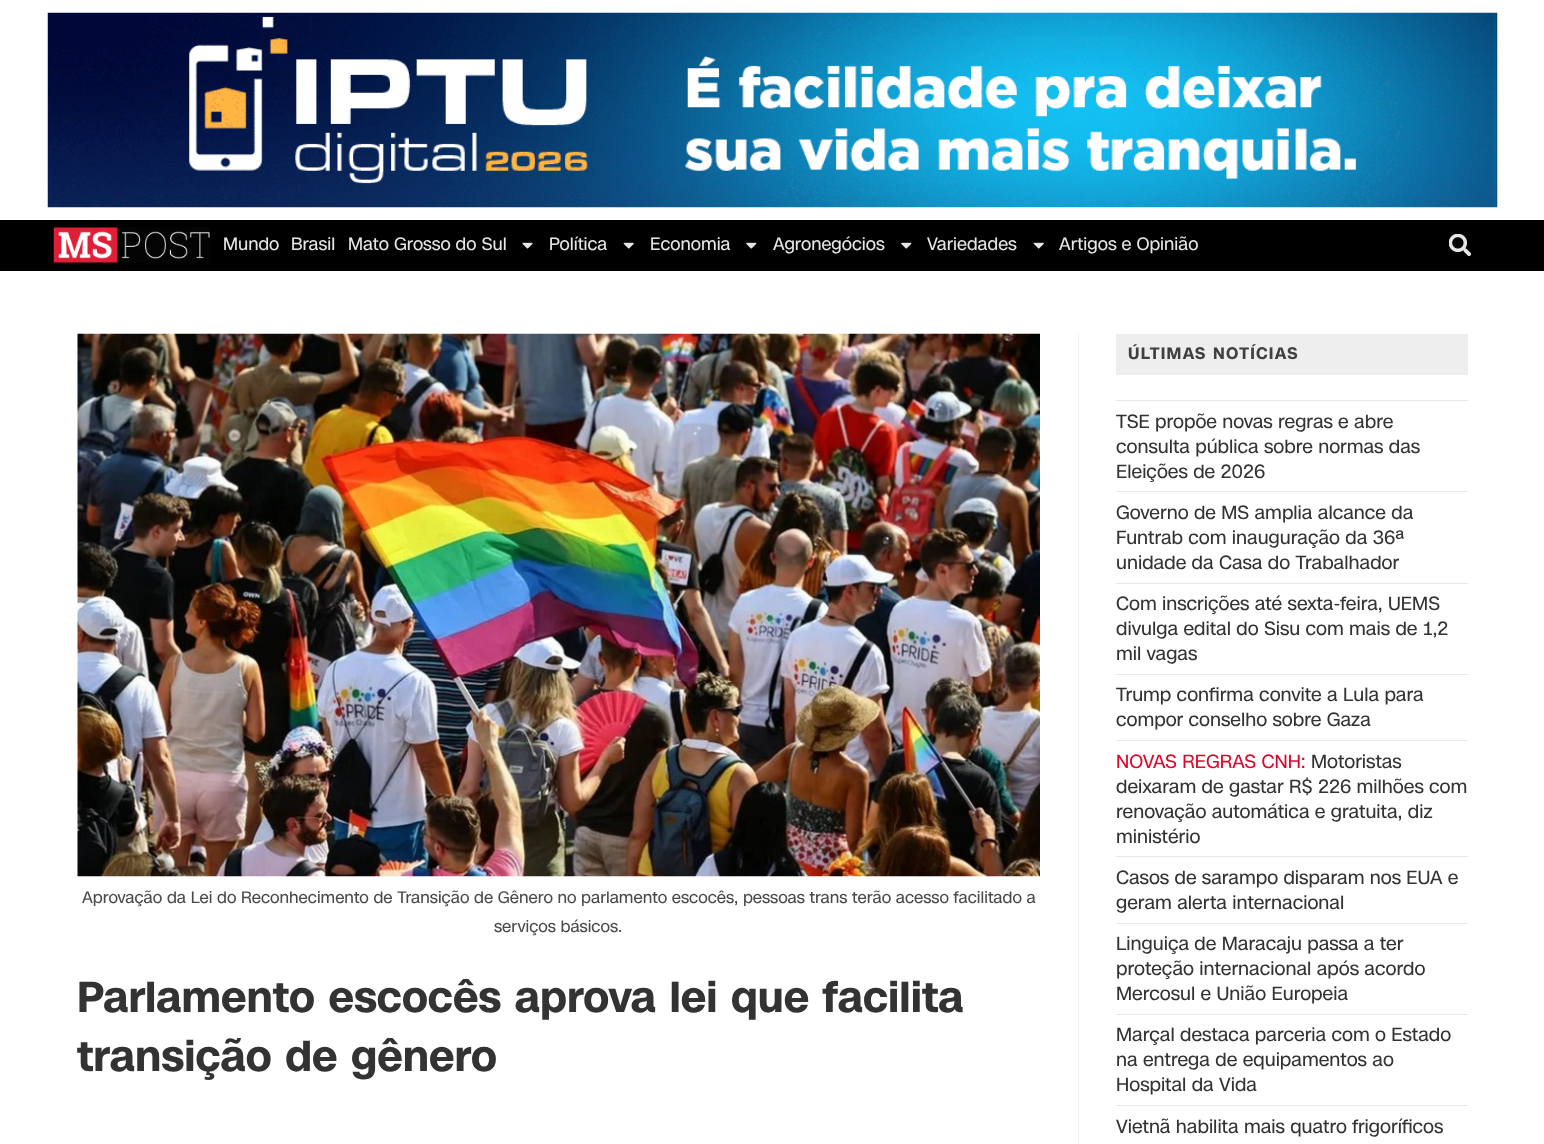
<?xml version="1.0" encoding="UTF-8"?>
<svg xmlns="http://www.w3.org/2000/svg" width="1544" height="1144">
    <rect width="100%" height="100%" fill="#FFFFFF"/>
    <image x="47" y="12" width="1451" height="196" href="img_01.png"/>
    <rect x="0" y="220" width="1544" height="51" fill="#000000"/>
    <image x="53" y="227" width="157" height="36" href="img_02.png"/>
    <text x="223" y="250" font-family="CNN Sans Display" font-size="17.5" fill="#E6E6E6">Mundo</text>
    <text x="291" y="250" font-family="CNN Sans Display" font-size="17.5" fill="#E6E6E6">Brasil</text>
    <text x="348" y="250" font-family="CNN Sans Display" font-size="17.5" fill="#E6E6E6">Mato Grosso do Sul</text>
    <image x="522" y="242" width="11" height="7" href="img_03.png"/>
    <text x="549" y="250" font-family="CNN Sans Display" font-size="17.5" fill="#E6E6E6">Política</text>
    <image x="623" y="242" width="11" height="7" href="img_04.png"/>
    <text x="650" y="250" font-family="CNN Sans Display" font-size="17.5" fill="#E6E6E6">Economia</text>
    <image x="746" y="242" width="11" height="7" href="img_05.png"/>
    <text x="773" y="250" font-family="CNN Sans Display" font-size="17.5" fill="#E6E6E6">Agronegócios</text>
    <image x="901" y="242" width="11" height="7" href="img_05.png"/>
    <text x="927" y="250" font-family="CNN Sans Display" font-size="17.5" fill="#E6E6E6">Variedades</text>
    <image x="1033" y="242" width="11" height="7" href="img_04.png"/>
    <text x="1059" y="250" font-family="CNN Sans Display" font-size="17.5" fill="#E6E6E6">Artigos e Opinião</text>
    <image x="1449" y="234" width="22" height="22" href="img_06.png"/>
    <rect x="1078" y="334" width="1" height="810" fill="#F1F1F1"/>
    <image x="77" y="333" width="963" height="544" href="img_07.png"/>
    <text x="82" y="903" font-family="CNN Sans Display" font-size="16.25" fill="#4A4A4A">Aprovação da Lei do Reconhecimento de Transição de Gênero no parlamento escocês, pessoas trans terão acesso facilitado a</text>
    <text x="494" y="932" font-family="CNN Sans Display" font-size="16.25" fill="#4A4A4A">serviços básicos.</text>
    <text font-family="CNN Sans Display" font-size="42.5" font-weight="700" fill="#333333">
        <tspan x="77" y="1012">Parlamento escocês aprova lei que facilita</tspan>
        <tspan x="77" y="1071">transição de gênero</tspan>
    </text>
    <rect x="1116" y="334" width="352" height="41" fill="#EEEEEE"/>
    <text x="1128" y="359" font-family="CNN Sans Display" font-size="16.25" font-weight="700" letter-spacing="1.25" fill="#404040">ÚLTIMAS NOTÍCIAS</text>
    <rect x="1116" y="400" width="352" height="1" fill="#E9E9E9"/>
    <rect x="1116" y="491" width="352" height="1" fill="#E9E9E9"/>
    <text font-family="CNN Sans Display" font-size="18.75" fill="#333333">
        <tspan x="1116" y="428">TSE propõe novas regras e abre</tspan>
        <tspan x="1116" y="453">consulta pública sobre normas das</tspan>
        <tspan x="1116" y="478">Eleições de 2026</tspan>
    </text>
    <rect x="1116" y="583" width="352" height="1" fill="#E9E9E9"/>
    <text font-family="CNN Sans Display" font-size="18.75" fill="#333333">
        <tspan x="1116" y="519">Governo de MS amplia alcance da</tspan>
        <tspan x="1116" y="544">Funtrab com inauguração da 36ª</tspan>
        <tspan x="1116" y="569">unidade da Casa do Trabalhador</tspan>
    </text>
    <rect x="1116" y="674" width="352" height="1" fill="#E9E9E9"/>
    <text font-family="CNN Sans Display" font-size="18.75" fill="#333333">
        <tspan x="1116" y="610">Com inscrições até sexta-feira, UEMS</tspan>
        <tspan x="1116" y="635">divulga edital do Sisu com mais de 1,2</tspan>
        <tspan x="1116" y="660">mil vagas</tspan>
    </text>
    <rect x="1116" y="740" width="352" height="1" fill="#E9E9E9"/>
    <text font-family="CNN Sans Display" font-size="18.75" fill="#333333">
        <tspan x="1116" y="701">Trump confirma convite a Lula para</tspan>
        <tspan x="1116" y="726">compor conselho sobre Gaza</tspan>
    </text>
    <rect x="1116" y="856" width="352" height="1" fill="#E9E9E9"/>
    <text x="1116" y="768" font-family="CNN Sans Display" font-size="18.75" fill="#DC092F">NOVAS REGRAS CNH:</text>
    <text x="1311" y="768" font-family="CNN Sans Display" font-size="18.75" fill="#333333">Motoristas</text>
    <text font-family="CNN Sans Display" font-size="18.75" fill="#333333">
        <tspan x="1116" y="793">deixaram de gastar R$ 226 milhões com</tspan>
        <tspan x="1116" y="818">renovação automática e gratuita, diz</tspan>
        <tspan x="1116" y="843">ministério</tspan>
    </text>
    <rect x="1116" y="923" width="352" height="1" fill="#E9E9E9"/>
    <text font-family="CNN Sans Display" font-size="18.75" fill="#333333">
        <tspan x="1116" y="884">Casos de sarampo disparam nos EUA e</tspan>
        <tspan x="1116" y="909">geram alerta internacional</tspan>
    </text>
    <rect x="1116" y="1014" width="352" height="1" fill="#E9E9E9"/>
    <text font-family="CNN Sans Display" font-size="18.75" fill="#333333">
        <tspan x="1116" y="950">Linguiça de Maracaju passa a ter</tspan>
        <tspan x="1116" y="975">proteção internacional após acordo</tspan>
        <tspan x="1116" y="1000">Mercosul e União Europeia</tspan>
    </text>
    <rect x="1116" y="1105" width="352" height="1" fill="#E9E9E9"/>
    <text font-family="CNN Sans Display" font-size="18.75" fill="#333333">
        <tspan x="1116" y="1041">Marçal destaca parceria com o Estado</tspan>
        <tspan x="1116" y="1066">na entrega de equipamentos ao</tspan>
        <tspan x="1116" y="1091">Hospital da Vida</tspan>
    </text>
    <text x="1116" y="1133" font-family="CNN Sans Display" font-size="18.75" fill="#333333">Vietnã habilita mais quatro frigoríficos</text>
</svg>
